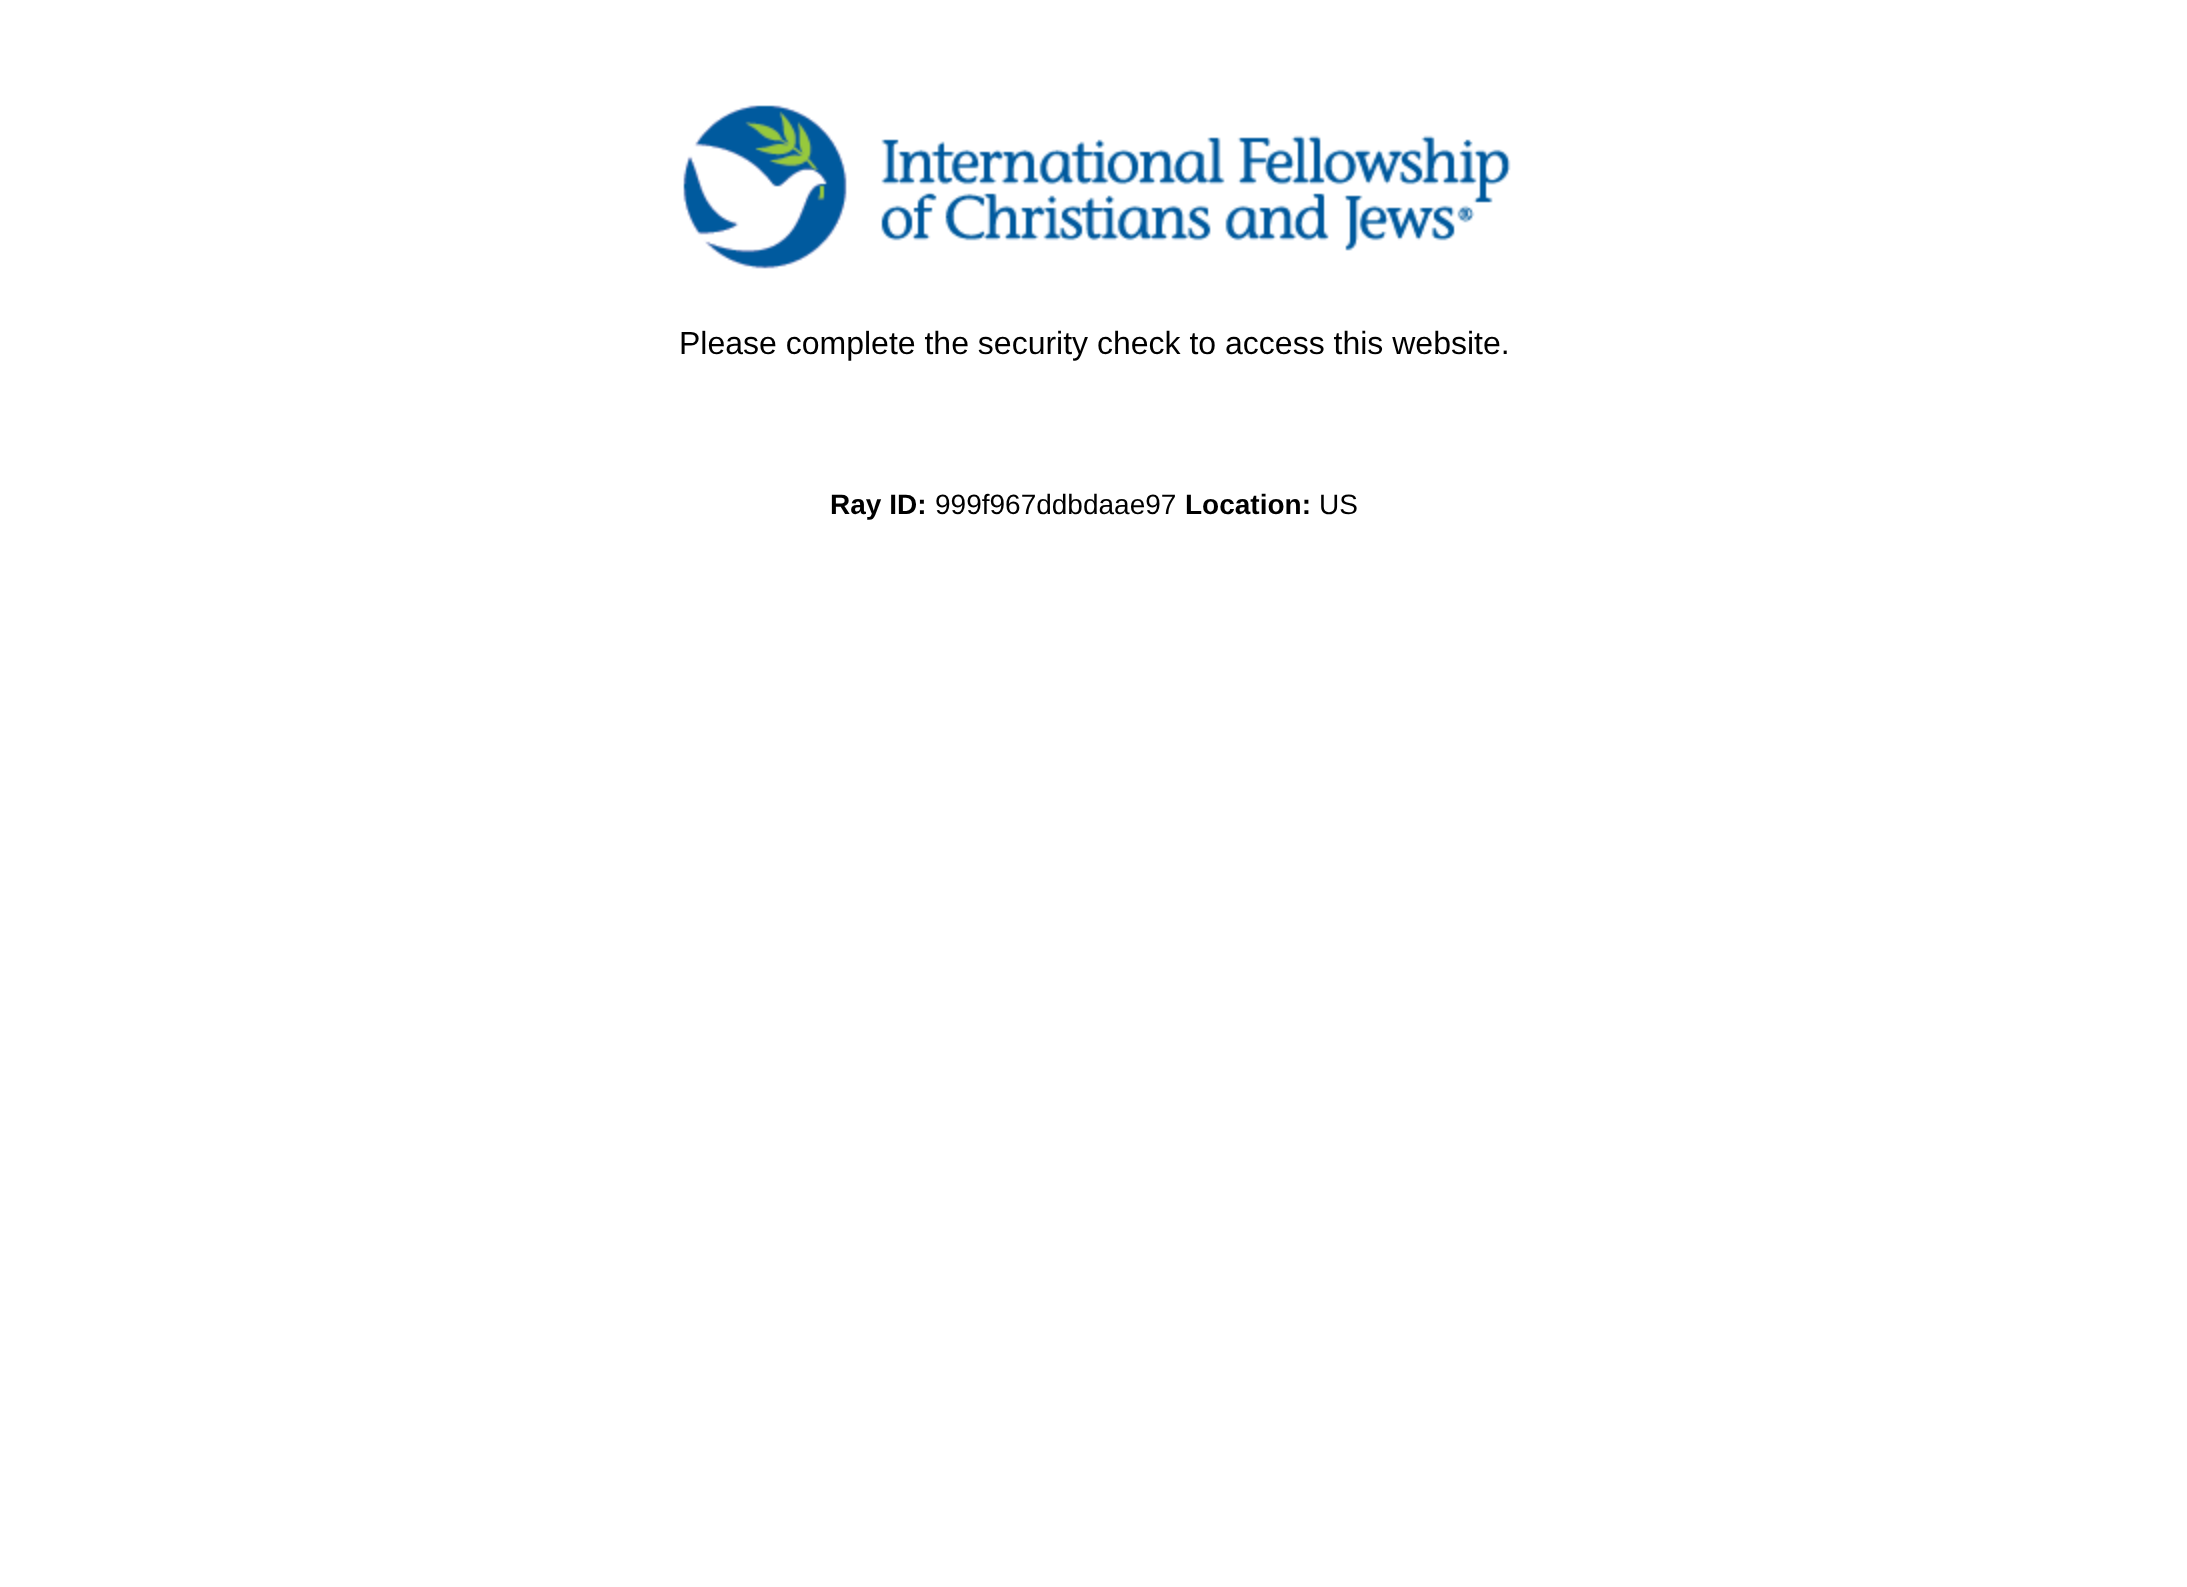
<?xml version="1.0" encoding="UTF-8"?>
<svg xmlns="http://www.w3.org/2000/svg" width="2187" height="1587">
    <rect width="100%" height="100%" fill="#FFFFFF"/>
    <image x="683" y="105" width="828" height="164" href="img_01.png"/>
    <text x="679" y="354" font-family="Liberation Sans" font-size="32" fill="#000000">Please complete the security check to access this website.</text>
    <text x="830" y="514" font-family="Liberation Sans" font-size="28" font-weight="700" fill="#000000">Ray ID:</text>
    <text x="935" y="514" font-family="Liberation Sans" font-size="28" fill="#000000">999f967ddbdaae97</text>
    <text x="1185" y="514" font-family="Liberation Sans" font-size="28" font-weight="700" fill="#000000">Location:</text>
    <text x="1319" y="514" font-family="Liberation Sans" font-size="28" fill="#000000">US</text>
</svg>
